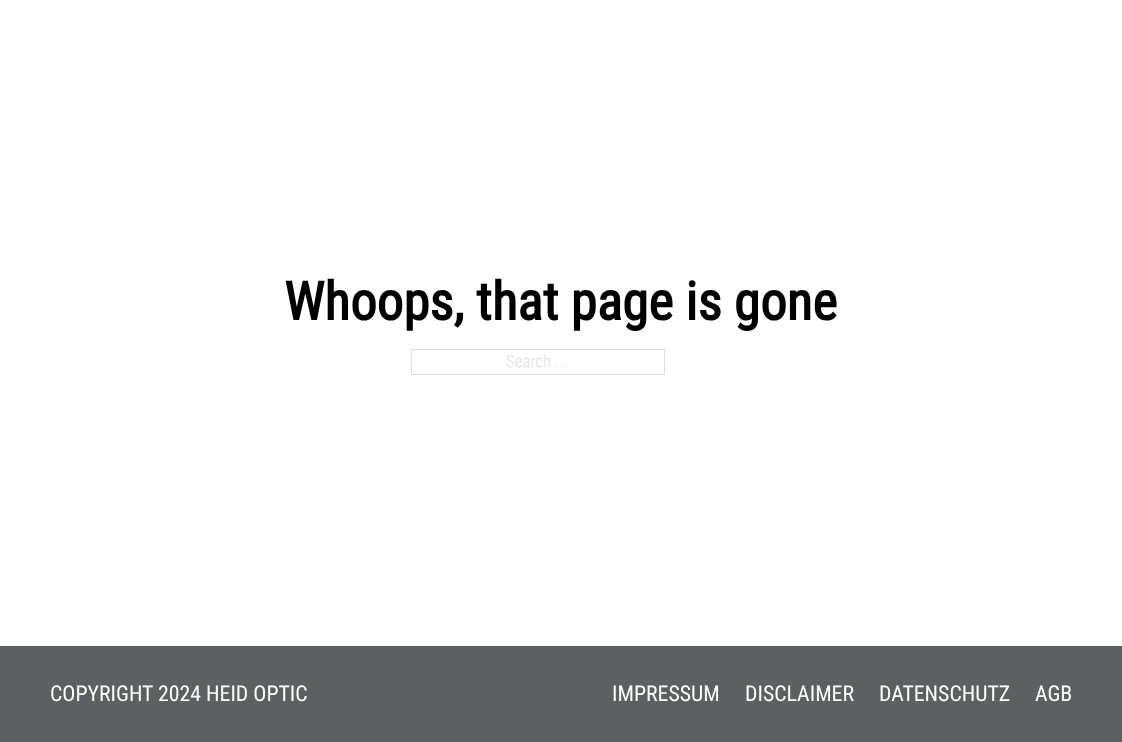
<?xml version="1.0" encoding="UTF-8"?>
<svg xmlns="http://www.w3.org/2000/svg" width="1122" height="742">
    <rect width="100%" height="100%" fill="#FFFFFF"/>
    <text x="284" y="320" font-family="Roboto Condensed" font-size="53" font-weight="700" fill="#000000">Whoops, that page is gone</text>
    <rect x="411.5" y="349.5" width="253" height="25" fill="none" stroke="#DDDEDF"/>
    <text x="506" y="367" font-family="Roboto Condensed" font-size="17" font-weight="300" fill="#DDDEDF">Search ...</text>
    <rect x="0" y="646" width="1122" height="96" fill="#5C6061"/>
    <text x="50" y="701" font-family="Roboto Condensed" font-size="21.8" fill="#FFFFFF">COPYRIGHT 2024 HEID OPTIC</text>
    <text x="612" y="701" font-family="Roboto Condensed" font-size="21.8" fill="#FFFFFF">IMPRESSUM</text>
    <text x="745" y="701" font-family="Roboto Condensed" font-size="21.8" fill="#FFFFFF">DISCLAIMER</text>
    <text x="879" y="701" font-family="Roboto Condensed" font-size="21.8" fill="#FFFFFF">DATENSCHUTZ</text>
    <text x="1035" y="701" font-family="Roboto Condensed" font-size="21.8" fill="#FFFFFF">AGB</text>
</svg>
